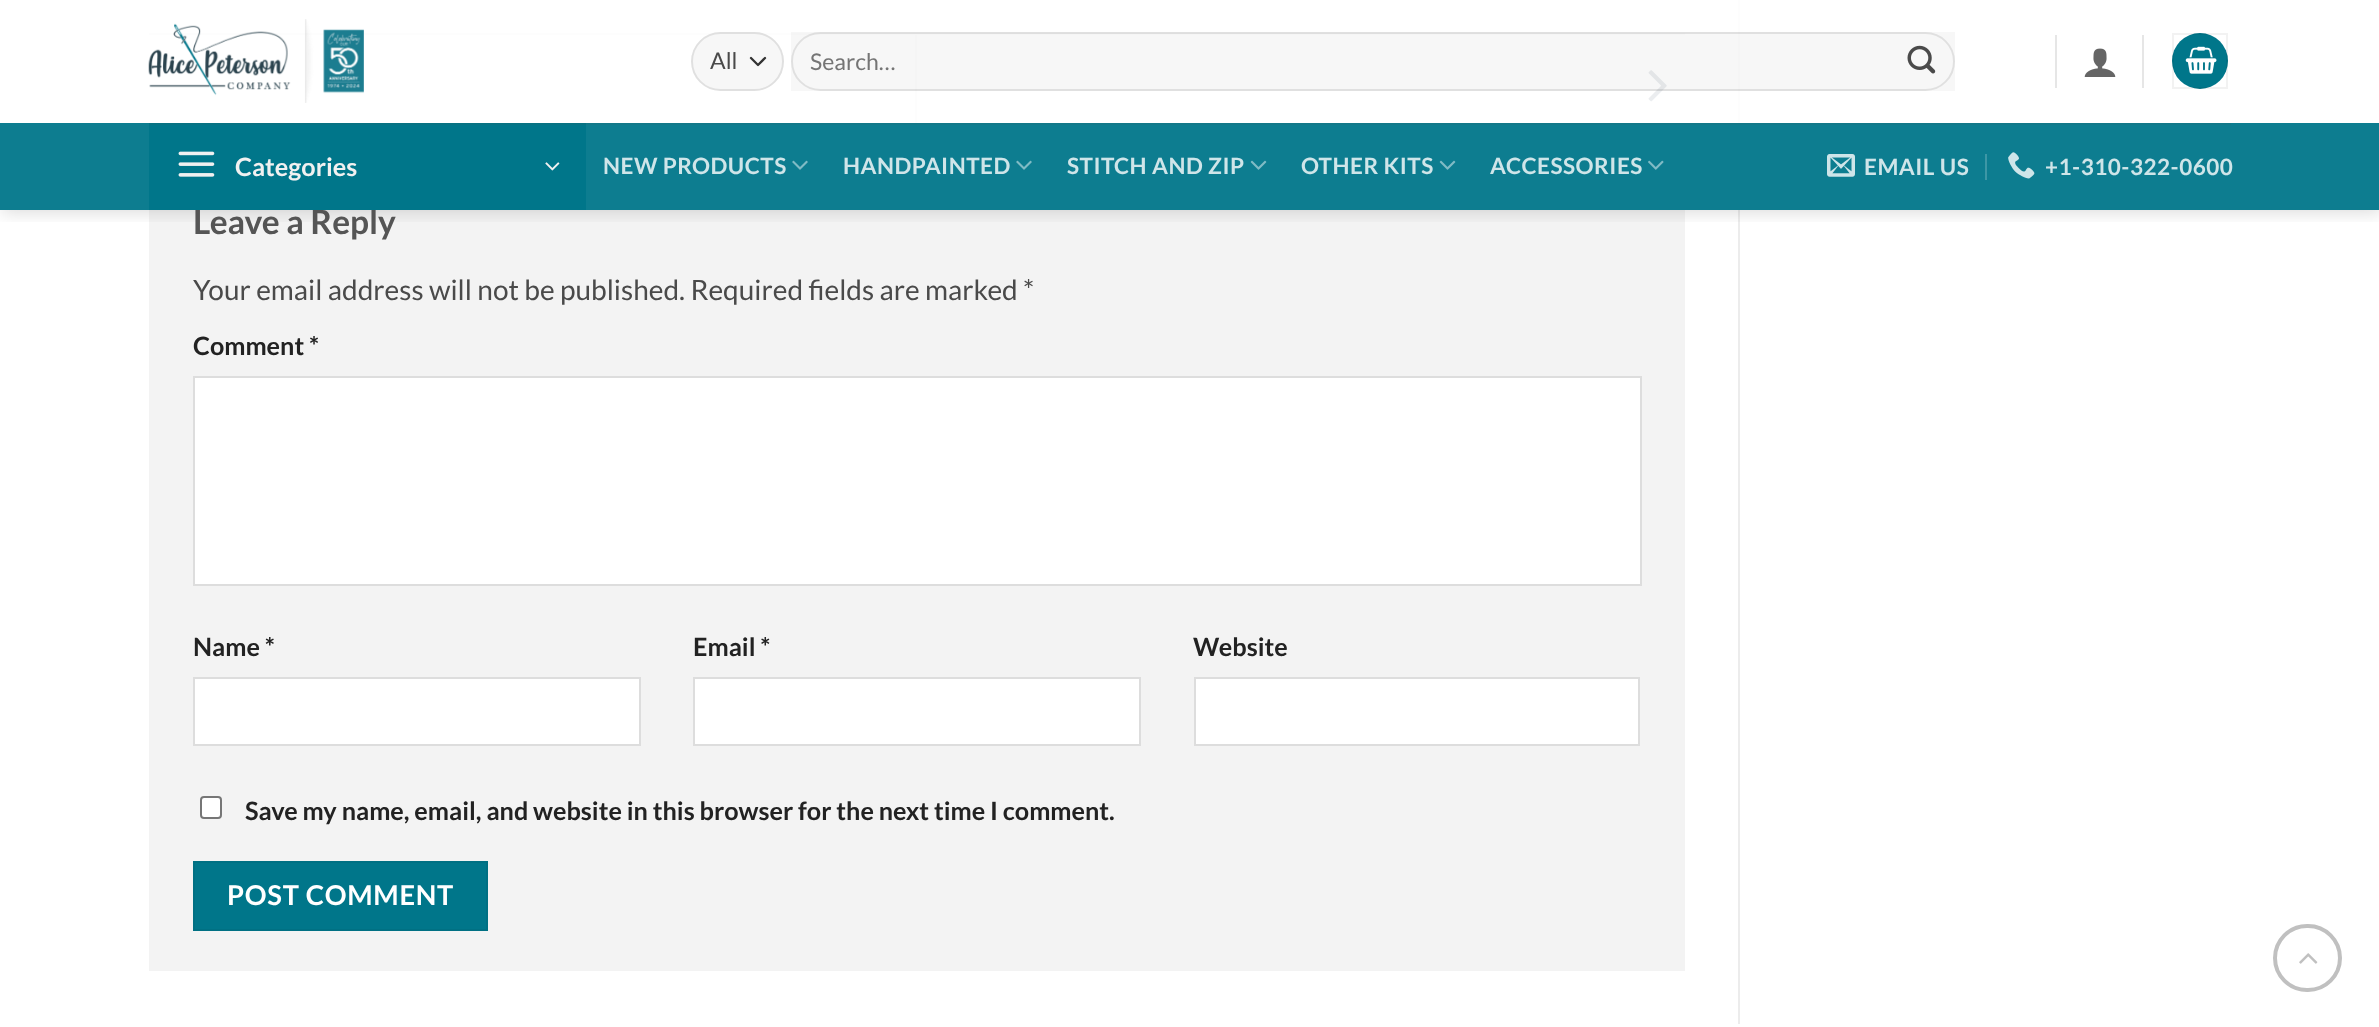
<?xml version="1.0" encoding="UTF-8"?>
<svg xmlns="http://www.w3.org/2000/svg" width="2379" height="1027">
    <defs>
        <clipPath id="clip1"><rect x="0" y="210" width="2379" height="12"/></clipPath>
        <filter id="blur1" x="-50%" y="-200%" width="200%" height="500%"><feGaussianBlur stdDeviation="9"/></filter>
    </defs>
    <rect width="100%" height="100%" fill="#FFFFFF"/>
    <rect x="149" y="33" width="1536" height="2" fill="#ECECEC"/>
    <rect x="586" y="142" width="1099" height="2" fill="#ECECEC"/>
    <rect x="915" y="35" width="2" height="107" fill="#ECECEC"/>
    <image x="1648" y="70" width="19" height="32" href="img_12.png"/>
    <rect x="149" y="170" width="1536" height="801" fill="#F3F3F3"/>
    <rect x="1738" y="0" width="2" height="1024" fill="#ECECEC"/>
    <g clip-path="url(#clip1)">
        <rect x="2" y="2" width="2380" height="210" fill="#000000" fill-opacity="0.15" filter="url(#blur1)"/>
    </g>
    <text x="193" y="234" font-family="Lato" font-size="33.5" font-weight="700" fill="#555555">Leave a Reply</text>
    <rect x="149" y="0" width="1591" height="210" fill="#FFFFFF" fill-opacity="0.9"/>
    <image x="148" y="19" width="216" height="84" href="img_01.png"/>
    <rect x="691" y="32" width="93" height="59" rx="29.5" fill="#F7F7F7"/>
    <path d="M 751 58 L 758 65 L 765 58" fill="none" stroke="#333333" stroke-width="2.3" stroke-linecap="round" stroke-linejoin="round"/>
    <rect x="692" y="33" width="91" height="57" rx="28.5" fill="none" stroke="#000000" stroke-opacity="0.09" stroke-width="2"/>
    <text x="710" y="69" font-family="Lato" font-size="23" fill="#4A4A4A">All</text>
    <rect x="791" y="32" width="1164" height="59" fill="#000000" fill-opacity="0.03"/>
    <rect x="792" y="33" width="1162" height="57" rx="28.5" fill="none" stroke="#000000" stroke-opacity="0.09" stroke-width="2"/>
    <text x="810" y="70" font-family="Lato" font-size="23" fill="#757575">Search…</text>
    <image x="1907" y="45" width="29" height="29" href="img_02.png"/>
    <rect x="2055" y="35" width="2" height="53" fill="#E6E6E6"/>
    <image x="2084" y="48" width="32" height="29" href="img_03.png"/>
    <rect x="2142" y="35" width="2" height="53" fill="#E6E6E6"/>
    <circle cx="2200" cy="61" r="28" fill="#00768A"/>
    <rect x="2173" y="34" width="54" height="54" fill="none" stroke="#000000" stroke-opacity="0.05" stroke-width="2"/>
    <image x="2185" y="46" width="32" height="28" href="img_04.png"/>
    <rect x="0" y="123" width="2379" height="87" fill="#00768A" fill-opacity="0.95"/>
    <rect x="149" y="123" width="437" height="87" fill="#00768A"/>
    <rect x="149" y="123" width="2082" height="2" fill="#4A4A4A" fill-opacity="0.1"/>
    <image x="178" y="151" width="37" height="26" href="img_05.png"/>
    <text x="235" y="176" font-family="Lato" font-size="25.2" font-weight="700" fill="#F1F1F1">Categories</text>
    <image x="545" y="162" width="15" height="9" href="img_06.png"/>
    <text x="603" y="174" font-family="Lato" font-size="22.5" font-weight="700" letter-spacing="0.5" fill="#CFE5E9">NEW PRODUCTS</text>
    <image x="792" y="160" width="16" height="10" href="img_07.png"/>
    <text x="843" y="174" font-family="Lato" font-size="22.5" font-weight="700" letter-spacing="0.5" fill="#CFE5E9">HANDPAINTED</text>
    <image x="1016" y="160" width="16" height="10" href="img_07.png"/>
    <text x="1067" y="174" font-family="Lato" font-size="22.5" font-weight="700" letter-spacing="0.5" fill="#CFE5E9">STITCH AND ZIP</text>
    <image x="1250" y="160" width="17" height="10" href="img_08.png"/>
    <text x="1301" y="174" font-family="Lato" font-size="22.5" font-weight="700" letter-spacing="0.5" fill="#CFE5E9">OTHER KITS</text>
    <image x="1439" y="160" width="17" height="10" href="img_08.png"/>
    <text x="1490" y="174" font-family="Lato" font-size="22.5" font-weight="700" letter-spacing="0.5" fill="#CFE5E9">ACCESSORIES</text>
    <image x="1648" y="160" width="16" height="10" href="img_09.png"/>
    <image x="1827" y="154" width="28" height="23" href="img_10.png"/>
    <text x="1864" y="175" font-family="Lato" font-size="22.5" font-weight="700" letter-spacing="0.5" fill="#CFE5E9">EMAIL US</text>
    <rect x="1985" y="154" width="2" height="26" fill="#3D97A6"/>
    <image x="2008" y="152" width="27" height="27" href="img_11.png"/>
    <text x="2045" y="175" font-family="Lato" font-size="22.5" font-weight="700" letter-spacing="0.5" fill="#CFE5E9">+1-310-322-0600</text>
    <text x="193" y="300" font-family="Lato" font-size="28" fill="#4A4A4A">Your email address will not be published. Required fields are marked *</text>
    <text x="193" y="355" font-family="Lato" font-size="25.2" font-weight="700" fill="#222222">Comment *</text>
    <rect x="194" y="377" width="1447" height="208" fill="#FFFFFF" stroke="#DDDDDD" stroke-width="2"/>
    <text x="193" y="656" font-family="Lato" font-size="25.2" font-weight="700" fill="#222222">Name *</text>
    <rect x="194" y="678" width="446" height="67" fill="#FFFFFF" stroke="#DDDDDD" stroke-width="2"/>
    <text x="693" y="656" font-family="Lato" font-size="25.2" font-weight="700" fill="#222222">Email *</text>
    <rect x="694" y="678" width="446" height="67" fill="#FFFFFF" stroke="#DDDDDD" stroke-width="2"/>
    <text x="1193" y="656" font-family="Lato" font-size="25.2" font-weight="700" fill="#222222">Website</text>
    <rect x="1195" y="678" width="444" height="67" fill="#FFFFFF" stroke="#DDDDDD" stroke-width="2"/>
    <rect x="201" y="797" width="20" height="21" rx="3" fill="#FFFFFF" stroke="#767676" stroke-width="2"/>
    <text x="245" y="820" font-family="Lato" font-size="25.2" font-weight="700" fill="#222222">Save my name, email, and website in this browser for the next time I comment.</text>
    <rect x="194" y="862" width="293" height="68" fill="#00768A" stroke="#007083" stroke-width="2"/>
    <text x="227" y="905" font-family="Lato" font-size="27.25" font-weight="700" letter-spacing="0.75" fill="#FFFFFF">POST COMMENT</text>
    <rect x="2275" y="926" width="65" height="64" rx="32" fill="none" stroke="#C0C0C0" stroke-width="4"/>
    <image x="2299" y="953" width="19" height="11" href="img_13.png"/>
</svg>
